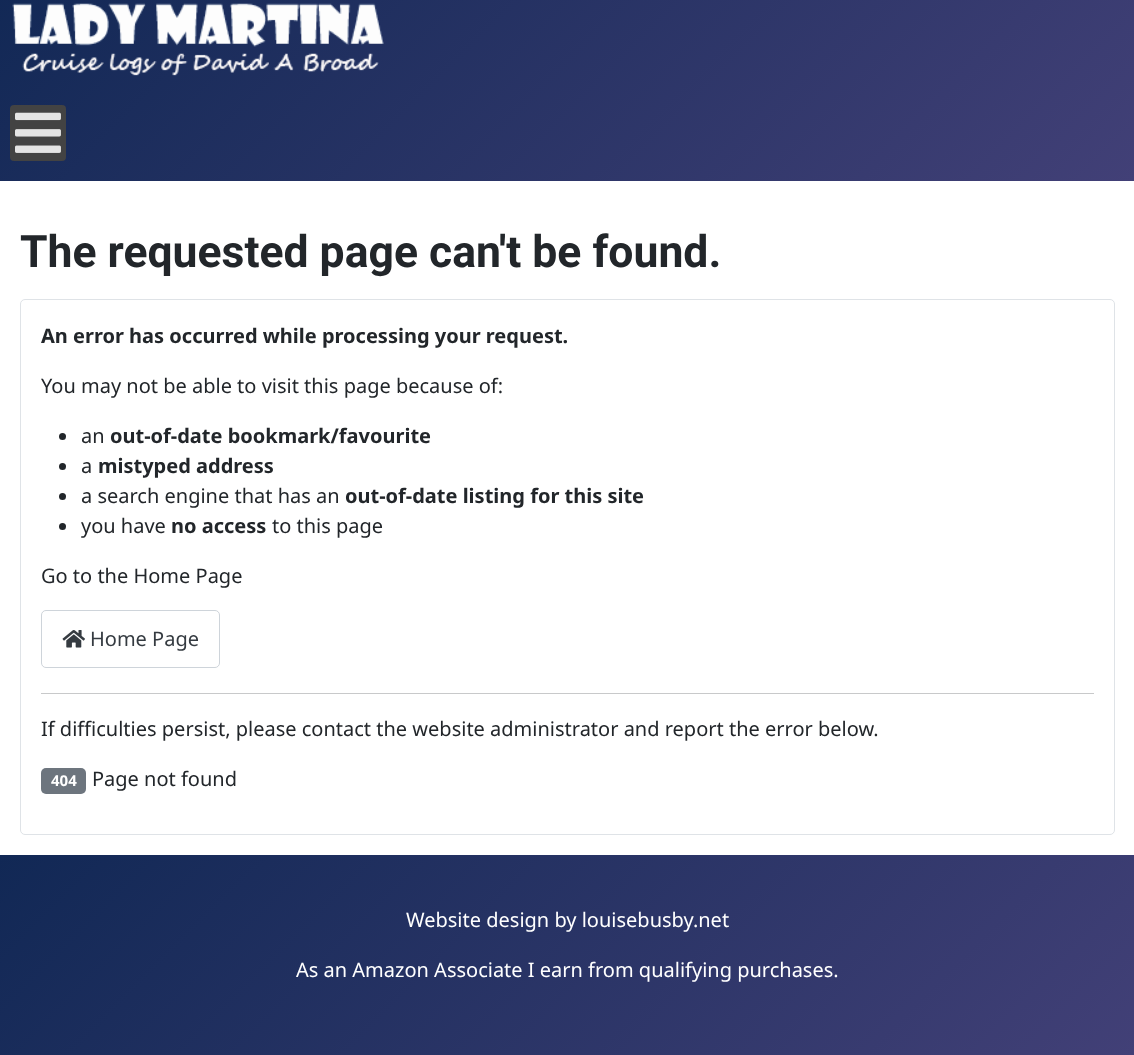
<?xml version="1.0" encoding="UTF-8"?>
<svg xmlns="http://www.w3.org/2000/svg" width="1134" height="1055">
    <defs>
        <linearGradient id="g1" gradientUnits="userSpaceOnUse" x1="231" y1="-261" x2="904" y2="412"><stop offset="0" stop-color="#112855"/><stop offset="1" stop-color="#424077"/></linearGradient>
        <linearGradient id="g2" gradientUnits="userSpaceOnUse" x1="234" y1="621" x2="901" y2="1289"><stop offset="0" stop-color="#112855"/><stop offset="1" stop-color="#424077"/></linearGradient>
    </defs>
    <rect width="100%" height="100%" fill="#FFFFFF"/>
    <rect x="0" y="0" width="1134" height="181" fill="url(#g1)"/>
    <image x="12" y="3" width="372" height="73" href="img_01.png"/>
    <rect x="10" y="105" width="56" height="56" rx="4" fill="#434343"/>
    <image x="15" y="112" width="46" height="41" href="img_02.png"/>
    <text x="20" y="267" font-family="Roboto" font-size="44.5" font-weight="700" fill="#22262A">The requested page can't be found.</text>
    <rect x="20.5" y="299.5" width="1094" height="535" rx="4.5" fill="none" stroke="#DFE3E7"/>
    <text x="41" y="343" font-family="Noto Sans" font-size="20" font-weight="700" fill="#22262A">An error has occurred while processing your request.</text>
    <text x="41" y="393" font-family="Noto Sans" font-size="20" fill="#22262A">You may not be able to visit this page because of:</text>
    <circle cx="62.5" cy="436.5" r="3.5" fill="#22262A"/>
    <text x="81" y="443" font-family="Noto Sans" font-size="20" fill="#22262A">an</text>
    <text x="110" y="443" font-family="Noto Sans" font-size="20" font-weight="700" fill="#22262A">out-of-date bookmark/favourite</text>
    <circle cx="62.5" cy="466.5" r="3.5" fill="#22262A"/>
    <text x="81" y="473" font-family="Noto Sans" font-size="20" fill="#22262A">a</text>
    <text x="98" y="473" font-family="Noto Sans" font-size="20" font-weight="700" fill="#22262A">mistyped address</text>
    <circle cx="62.5" cy="496.5" r="3.5" fill="#22262A"/>
    <text x="81" y="503" font-family="Noto Sans" font-size="20" fill="#22262A">a search engine that has an</text>
    <text x="345" y="503" font-family="Noto Sans" font-size="20" font-weight="700" fill="#22262A">out-of-date listing for this site</text>
    <circle cx="62.5" cy="526.5" r="3.5" fill="#22262A"/>
    <text x="81" y="533" font-family="Noto Sans" font-size="20" fill="#22262A">you have</text>
    <text x="171" y="533" font-family="Noto Sans" font-size="20" font-weight="700" fill="#22262A">no access</text>
    <text x="272" y="533" font-family="Noto Sans" font-size="20" fill="#22262A">to this page</text>
    <text x="41" y="583" font-family="Noto Sans" font-size="20" fill="#22262A">Go to the Home Page</text>
    <rect x="41.5" y="610.5" width="178" height="57" rx="4.5" fill="none" stroke="#CED4DA"/>
    <image x="62" y="630" width="23" height="18" href="img_03.png"/>
    <text x="90" y="646" font-family="Noto Sans" font-size="20" fill="#353B41">Home Page</text>
    <rect x="41" y="693" width="1053" height="1" fill="#C8C9CA"/>
    <text x="41" y="736" font-family="Noto Sans" font-size="20" fill="#22262A">If difficulties persist, please contact the website administrator and report the error below.</text>
    <rect x="41" y="768" width="45" height="26" rx="5" fill="#6D757E"/>
    <text x="51" y="786" font-family="Noto Sans" font-size="15" font-weight="700" fill="#FFFFFF">404</text>
    <text x="92" y="786" font-family="Noto Sans" font-size="20" fill="#22262A">Page not found</text>
    <rect x="0" y="855" width="1134" height="200" fill="url(#g2)"/>
    <text x="406" y="927" font-family="Noto Sans" font-size="20" fill="#FFFFFF">Website design by louisebusby.net</text>
    <text x="296" y="977" font-family="Noto Sans" font-size="20" fill="#FFFFFF">As an Amazon Associate I earn from qualifying purchases.</text>
</svg>
